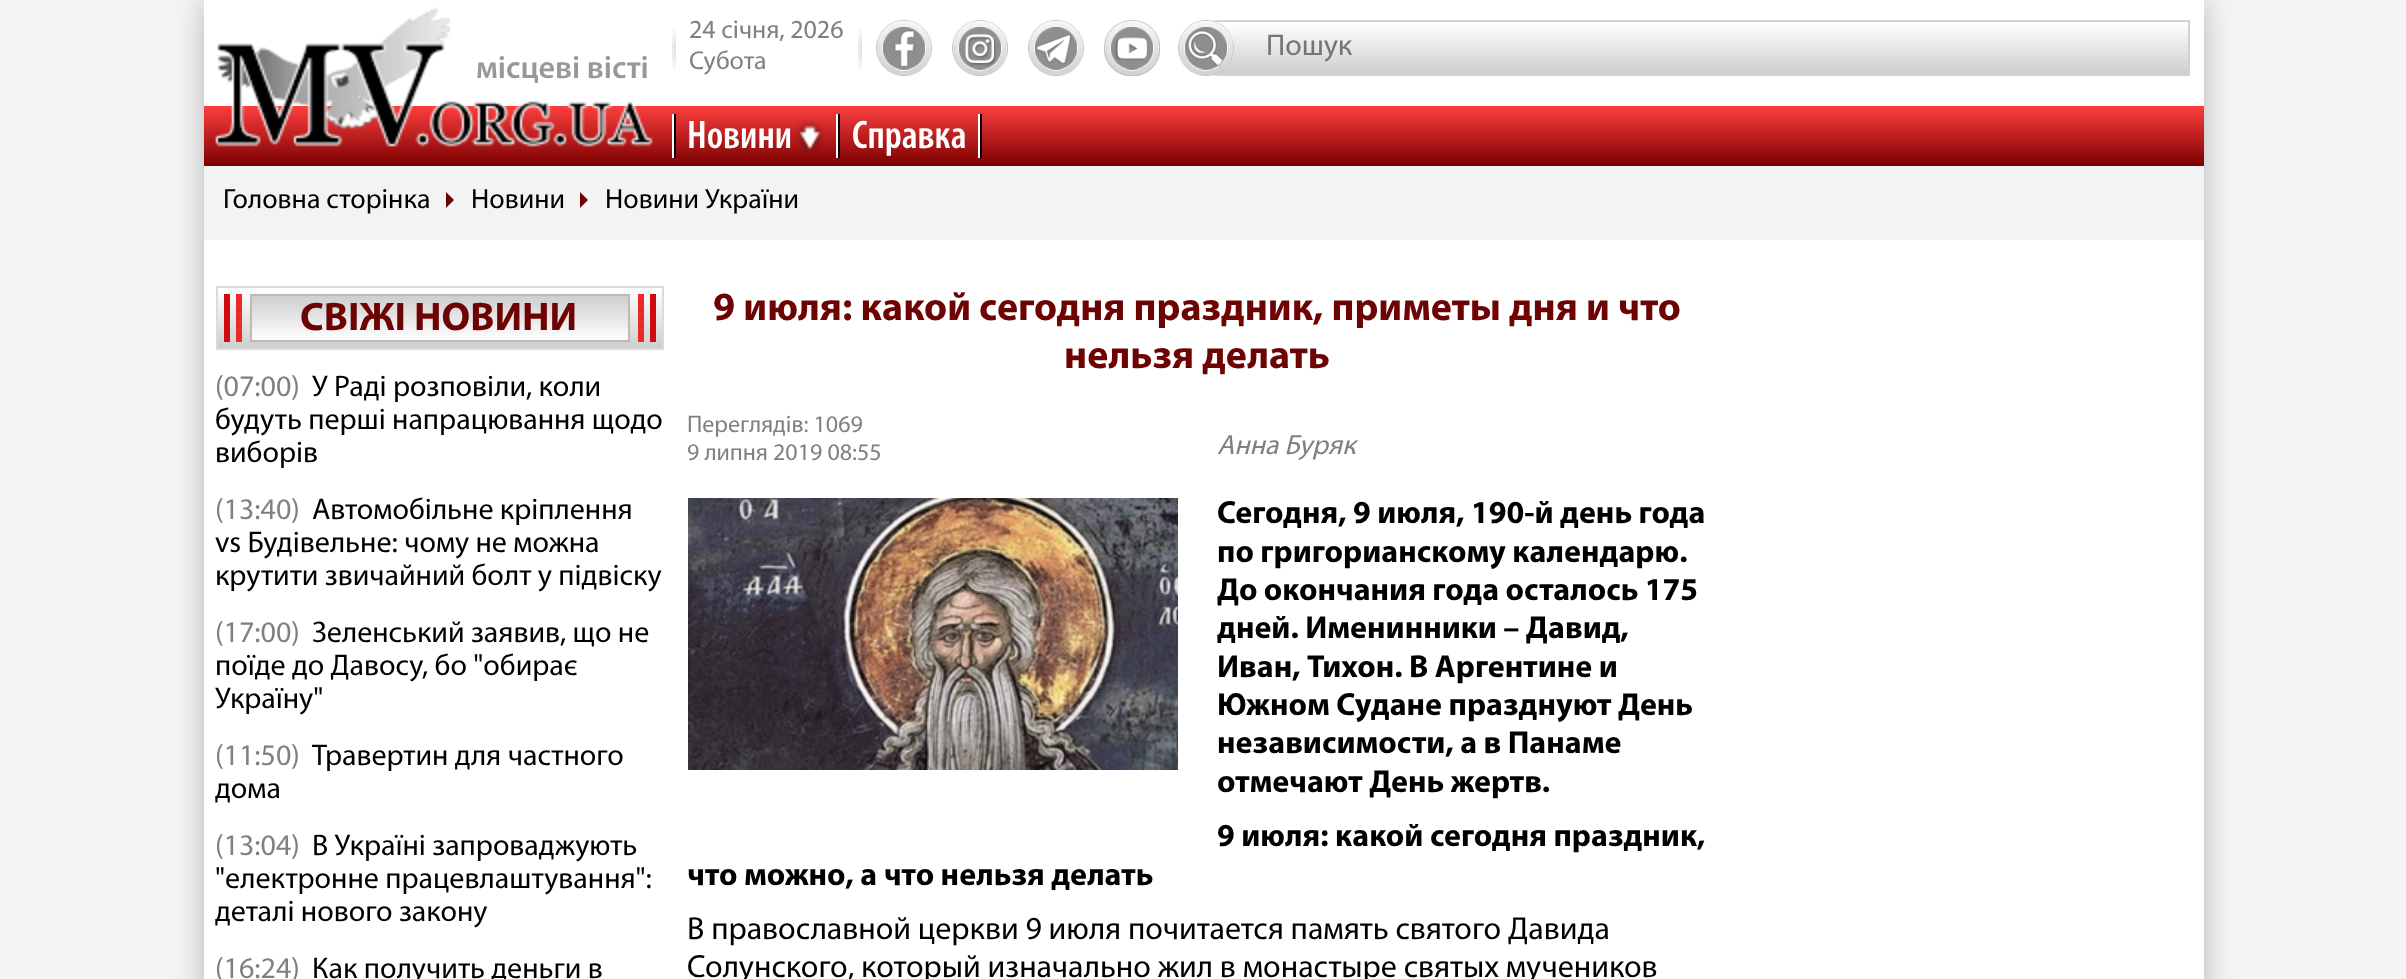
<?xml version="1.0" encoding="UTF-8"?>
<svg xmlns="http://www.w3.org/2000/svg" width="2406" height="979">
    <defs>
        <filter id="blur1" x="-50%" y="-200%" width="200%" height="500%"><feGaussianBlur stdDeviation="15"/></filter>
        <linearGradient id="g1" gradientUnits="userSpaceOnUse" x1="1204" y1="166" x2="1204" y2="106"><stop offset="0" stop-color="#7B0000"/><stop offset="1" stop-color="#FD3E3E"/></linearGradient>
        <clipPath id="clip1"><path d="M 1220 20 H 2190 V 76 H 1220 C 1204.5 76 1192 63.5 1192 48 C 1192 32.5 1204.5 20 1220 20 Z"/></clipPath>
        <linearGradient id="g2" gradientUnits="userSpaceOnUse" x1="1691" y1="74" x2="1691" y2="22"><stop offset="0" stop-color="#CECECE"/><stop offset="1" stop-color="#FFFFFF"/></linearGradient>
        <linearGradient id="g3" gradientUnits="userSpaceOnUse" x1="440" y1="348" x2="440" y2="288"><stop offset="0" stop-color="#CECECE"/><stop offset="1" stop-color="#FFFFFF"/></linearGradient>
        <linearGradient id="g4" gradientUnits="userSpaceOnUse" x1="440" y1="296" x2="440" y2="340"><stop offset="0" stop-color="#CECECE"/><stop offset="1" stop-color="#FFFFFF"/></linearGradient>
    </defs>
    <rect width="100%" height="100%" fill="#F4F4F4"/>
    <rect x="204" y="0" width="2000" height="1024" fill="#000000" fill-opacity="0.25" filter="url(#blur1)"/>
    <rect x="204" y="0" width="2000" height="979" fill="#FFFFFF"/>
    <rect x="204" y="106" width="2000" height="60" fill="url(#g1)"/>
    <image x="215" y="7" width="438" height="140" href="img_01.png"/>
    <text x="476" y="78" font-family="Myriad" font-size="32" font-weight="600" fill="#989898">місцеві вісті</text>
    <image x="672" y="27" width="4" height="44" href="img_02.png"/>
    <text font-family="Myriad" font-size="26" fill="#808080">
        <tspan x="689" y="38">24 січня, 2026</tspan>
        <tspan x="689" y="69">Субота</tspan>
    </text>
    <image x="858" y="27" width="4" height="44" href="img_02.png"/>
    <image x="876" y="20" width="56" height="56" href="img_03.png"/>
    <image x="952" y="20" width="56" height="56" href="img_04.png"/>
    <image x="1028" y="20" width="56" height="56" href="img_05.png"/>
    <image x="1104" y="20" width="56" height="56" href="img_06.png"/>
    <g clip-path="url(#clip1)">
        <rect x="1213" y="22" width="975" height="52" fill="url(#g2)"/>
    </g>
    <path d="M 1220 21 H 2189 V 75 H 1220 C 1205 75 1193 63 1193 48 C 1193 33 1205 21 1220 21 Z" fill="none" stroke="#D3D1D1" stroke-width="2"/>
    <image x="1178" y="20" width="56" height="56" href="img_07.png"/>
    <text x="1266" y="55" font-family="Myriad" font-size="30" fill="#757575">Пошук</text>
    <rect x="672" y="114" width="2" height="44" fill="#FFFFFF"/>
    <rect x="674" y="114" width="2" height="44" fill="#000000"/>
    <text x="687" y="148" font-family="'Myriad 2'" font-size="40" font-weight="600" fill="#FFFFFF">Новини</text>
    <image x="795" y="120" width="30" height="33" href="img_08.png"/>
    <rect x="836" y="114" width="2" height="44" fill="#FFFFFF"/>
    <rect x="838" y="114" width="2" height="44" fill="#000000"/>
    <text x="852" y="148" font-family="'Myriad 2'" font-size="40" font-weight="600" fill="#FFFFFF">Справка</text>
    <rect x="978" y="114" width="2" height="44" fill="#FFFFFF"/>
    <rect x="980" y="114" width="2" height="44" fill="#000000"/>
    <rect x="204" y="166" width="2000" height="74" fill="#F3F3F3"/>
    <text x="223" y="208" font-family="Myriad" font-size="28" fill="#000000">Головна сторінка</text>
    <path d="M 446 208 V 192 L 454 200 Z" fill="#6E0303"/>
    <text x="471" y="208" font-family="Myriad" font-size="28" fill="#000000">Новини</text>
    <path d="M 580 208 V 192 L 588 200 Z" fill="#6E0303"/>
    <text x="605" y="208" font-family="Myriad" font-size="28" fill="#000000">Новини України</text>
    <rect x="218" y="291" width="444" height="57" fill="url(#g3)"/>
    <rect x="217" y="287" width="446" height="62" fill="none" stroke="#DCDADA" stroke-width="2"/>
    <rect x="236" y="294" width="6" height="48" fill="#EC2929"/>
    <rect x="224" y="294" width="6" height="48" fill="#CF0B0B"/>
    <rect x="252" y="296" width="376" height="44" fill="url(#g4)"/>
    <rect x="251" y="295" width="378" height="46" fill="none" stroke="#BABABA" stroke-width="2"/>
    <text x="300" y="330" font-family="Myriad" font-size="40" font-weight="700" fill="#6E0303">СВІЖІ НОВИНИ</text>
    <rect x="650" y="294" width="6" height="48" fill="#CF0B0B"/>
    <rect x="638" y="294" width="6" height="48" fill="#EC2929"/>
    <text x="215" y="396" font-family="Myriad" font-size="30" fill="#808080">(07:00)</text>
    <text x="312" y="396" font-family="Myriad" font-size="30" fill="#000000">У Раді розповіли, коли</text>
    <text font-family="Myriad" font-size="30" fill="#000000">
        <tspan x="215" y="429">будуть перші напрацювання щодо</tspan>
        <tspan x="215" y="462">виборів</tspan>
    </text>
    <text x="215" y="519" font-family="Myriad" font-size="30" fill="#808080">(13:40)</text>
    <text x="312" y="519" font-family="Myriad" font-size="30" fill="#000000">Автомобільне кріплення</text>
    <text font-family="Myriad" font-size="30" fill="#000000">
        <tspan x="215" y="552">vs Будівельне: чому не можна</tspan>
        <tspan x="215" y="585">крутити звичайний болт у підвіску</tspan>
    </text>
    <text x="215" y="642" font-family="Myriad" font-size="30" fill="#808080">(17:00)</text>
    <text x="312" y="642" font-family="Myriad" font-size="30" fill="#000000">Зеленський заявив, що не</text>
    <text font-family="Myriad" font-size="30" fill="#000000">
        <tspan x="215" y="675">поїде до Давосу, бо "обирає</tspan>
        <tspan x="215" y="708">Україну"</tspan>
    </text>
    <text x="215" y="765" font-family="Myriad" font-size="30" fill="#808080">(11:50)</text>
    <text x="312" y="765" font-family="Myriad" font-size="30" fill="#000000">Травертин для частного</text>
    <text x="215" y="798" font-family="Myriad" font-size="30" fill="#000000">дома</text>
    <text x="215" y="855" font-family="Myriad" font-size="30" fill="#808080">(13:04)</text>
    <text x="312" y="855" font-family="Myriad" font-size="30" fill="#000000">В Україні запроваджують</text>
    <text font-family="Myriad" font-size="30" fill="#000000">
        <tspan x="215" y="888">"електронне працевлаштування":</tspan>
        <tspan x="215" y="921">деталі нового закону</tspan>
    </text>
    <text x="215" y="978" font-family="Myriad" font-size="30" fill="#808080">(16:24)</text>
    <text x="312" y="978" font-family="Myriad" font-size="30" fill="#000000">Как получить деньги в</text>
    <text x="713" y="320" font-family="Myriad" font-size="40" font-weight="700" fill="#6E0303">9 июля: какой сегодня праздник, приметы дня и что</text>
    <text x="1064" y="368" font-family="Myriad" font-size="40" font-weight="700" fill="#6E0303">нельзя делать</text>
    <text font-family="Myriad" font-size="24" fill="#808080">
        <tspan x="687" y="432">Переглядів: 1069</tspan>
        <tspan x="687" y="460">9 липня 2019 08:55</tspan>
    </text>
    <text x="1217" y="454" font-family="Myriad" font-size="28" font-style="italic" fill="#808080">Анна Буряк</text>
    <image x="688" y="498" width="490" height="272" href="img_09.png"/>
    <text font-family="Myriad" font-size="32" font-weight="700" fill="#000000">
        <tspan x="1217" y="523">Сегодня, 9 июля, 190-й день года</tspan>
        <tspan x="1217" y="562">по григорианскому календарю.</tspan>
        <tspan x="1217" y="600">До окончания года осталось 175</tspan>
        <tspan x="1217" y="638">дней. Именинники – Давид,</tspan>
        <tspan x="1217" y="677">Иван, Тихон. В Аргентине и</tspan>
        <tspan x="1217" y="715">Южном Судане празднуют День</tspan>
        <tspan x="1217" y="753">независимости, а в Панаме</tspan>
        <tspan x="1217" y="792">отмечают День жертв.</tspan>
        <tspan x="1217" y="846">9 июля: какой сегодня праздник,</tspan>
    </text>
    <text x="687" y="885" font-family="Myriad" font-size="32" font-weight="700" fill="#000000">что можно, а что нельзя делать</text>
    <text font-family="Myriad" font-size="32" fill="#000000">
        <tspan x="687" y="939">В православной церкви 9 июля почитается память святого Давида</tspan>
        <tspan x="687" y="977">Солунского, который изначально жил в монастыре святых мучеников</tspan>
    </text>
</svg>
